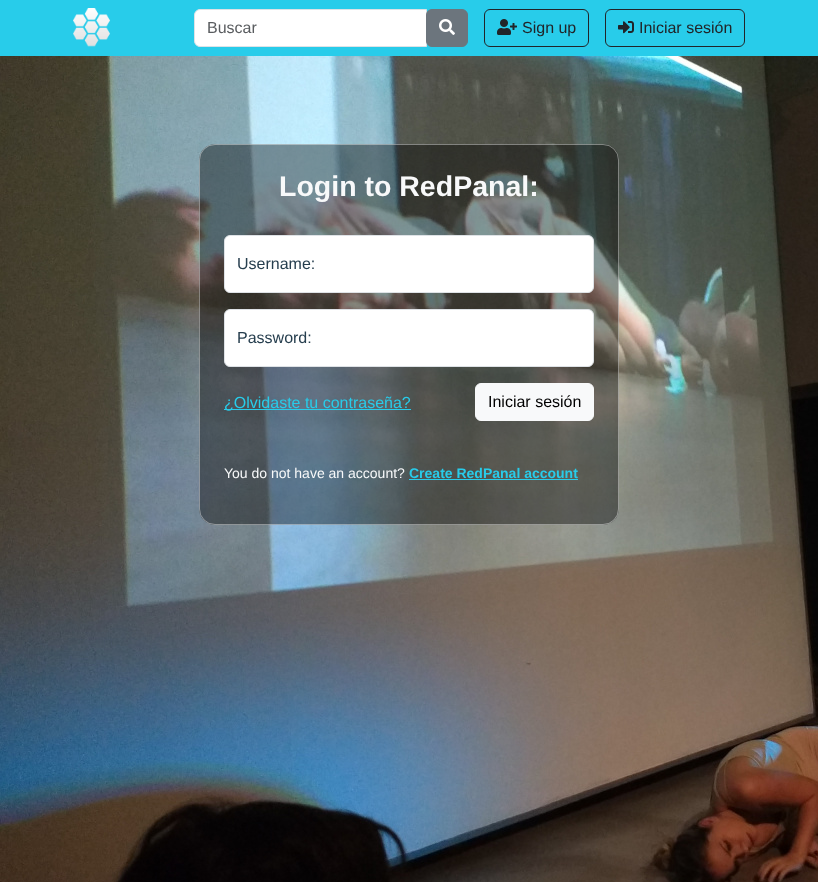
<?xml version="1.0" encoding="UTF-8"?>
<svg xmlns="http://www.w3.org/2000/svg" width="818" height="882">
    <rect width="100%" height="100%" fill="#FFFFFF"/>
    <image x="0" y="56" width="818" height="826" href="img_01.png"/>
    <rect x="0" y="0" width="818" height="56" fill="#28CCEA"/>
    <image x="73" y="8" width="38" height="39" href="img_02.png"/>
    <path d="M 200 9.5 H 426.5 V 46.5 H 200 C 197 46.5 194.5 44 194.5 41 V 15 C 194.5 12 197 9.5 200 9.5 Z" fill="#FFFFFF" stroke="#DEE2E6"/>
    <text x="207" y="33" font-family="Liberation Sans" font-size="16" fill="#595C5F">Buscar</text>
    <rect x="426.5" y="9.5" width="41" height="37" rx="5.5" fill="#6C757D" stroke="#6C757D"/>
    <image x="439" y="19" width="16" height="16" href="img_03.png"/>
    <rect x="484.5" y="9.5" width="104" height="37" rx="5.5" fill="none" stroke="#212529"/>
    <image x="497" y="19" width="20" height="16" href="img_04.png"/>
    <text x="522" y="33" font-family="Liberation Sans" font-size="16" fill="#212529">Sign up</text>
    <rect x="605.5" y="9.5" width="139" height="37" rx="5.5" fill="none" stroke="#212529"/>
    <image x="618" y="21" width="16" height="13" href="img_05.png"/>
    <text x="639" y="33" font-family="Liberation Sans" font-size="16" fill="#212529">Iniciar sesión</text>
    <rect x="199" y="144" width="420" height="381" rx="16" fill="#000000" fill-opacity="0.4"/>
    <rect x="199.5" y="144.5" width="419" height="380" rx="15.5" fill="none" stroke="#FFFFFF" stroke-opacity="0.4"/>
    <text x="279" y="196" font-family="Liberation Sans" font-size="28.5" font-weight="700" fill="#F8F9FA">Login to RedPanal:</text>
    <rect x="224.5" y="235.5" width="369" height="57" rx="5.5" fill="#FFFFFF" stroke="#DEE2E6"/>
    <text x="237" y="269" font-family="Liberation Sans" font-size="16" fill="#263E4E">Username:</text>
    <rect x="224.5" y="309.5" width="369" height="57" rx="5.5" fill="#FFFFFF" stroke="#DEE2E6"/>
    <text x="237" y="343" font-family="Liberation Sans" font-size="16" fill="#263E4E">Password:</text>
    <rect x="224" y="409" width="187" height="1" fill="#28CCEA"/>
    <text x="224" y="408" font-family="Liberation Sans" font-size="16" fill="#28CCEA">¿Olvidaste tu contraseña?</text>
    <rect x="475.5" y="383.5" width="118" height="37" rx="5.5" fill="#F8F9FA" stroke="#F8F9FA"/>
    <text x="488" y="407" font-family="Liberation Sans" font-size="16" fill="#000000">Iniciar sesión</text>
    <text x="224" y="478" font-family="Liberation Sans" font-size="14" fill="#F8F9FA">You do not have an account?</text>
    <text x="409" y="478" font-family="Liberation Sans" font-size="14" font-weight="700" fill="#28CCEA">Create RedPanal account</text>
    <rect x="409" y="479" width="169" height="1" fill="#28CCEA"/>
</svg>
